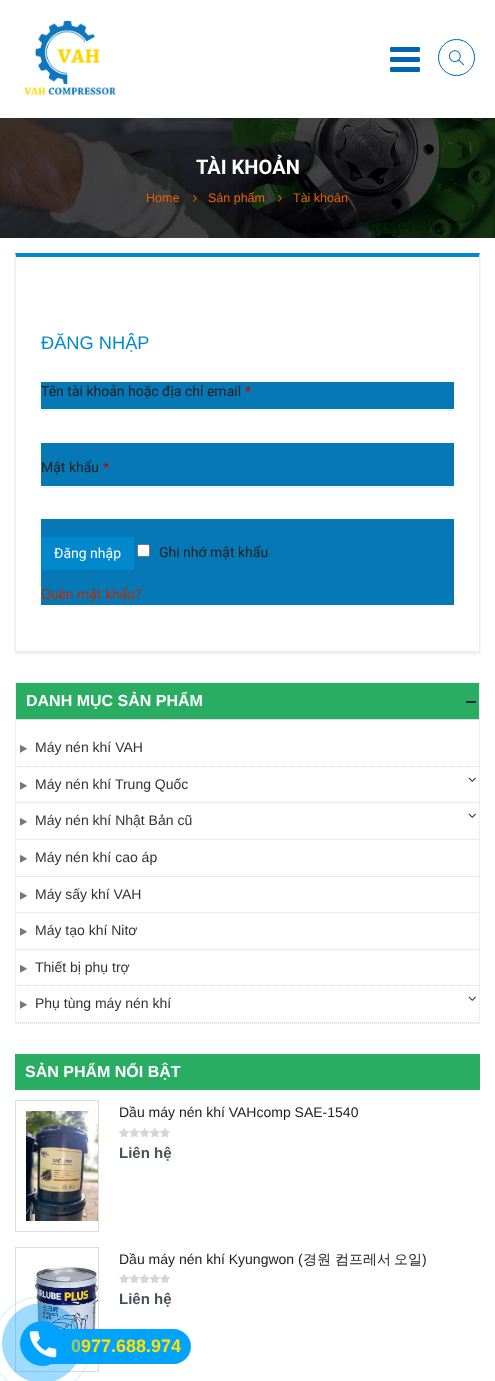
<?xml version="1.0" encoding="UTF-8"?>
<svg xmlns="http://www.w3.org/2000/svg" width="495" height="1381">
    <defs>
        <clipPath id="clip1"><path d="M 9 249 H 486 V 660 H 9 Z M 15 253 H 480 V 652 H 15 Z" clip-rule="evenodd"/></clipPath>
        <filter id="blur1" x="-50%" y="-200%" width="200%" height="500%"><feGaussianBlur stdDeviation="1.5"/></filter>
    </defs>
    <rect width="100%" height="100%" fill="#FFFFFF"/>
    <image x="24" y="20" width="92" height="76" href="img_01.png"/>
    <image x="390" y="47" width="30" height="25" href="img_02.png"/>
    <circle cx="456.5" cy="57.5" r="18" fill="none" stroke="#0066B3"/>
    <image x="449" y="50" width="15" height="16" href="img_03.png"/>
    <image x="0" y="118" width="495" height="120" href="img_04.png"/>
    <text x="196" y="174" font-family="Roboto" font-size="20" font-weight="700" fill="#FFFFFF">TÀI KHOẢN</text>
    <text x="146" y="202" font-family="Liberation Sans" font-size="12.5" fill="#E86108">Home</text>
    <image x="193" y="194" width="4" height="8" href="img_05.png"/>
    <text x="208" y="202" font-family="Liberation Sans" font-size="12.5" fill="#E86108">Sản phẩm</text>
    <image x="278" y="194" width="4" height="8" href="img_06.png"/>
    <text x="293" y="202" font-family="Liberation Sans" font-size="12.5" fill="#E86108">Tài khoản</text>
    <g clip-path="url(#clip1)">
        <rect x="15" y="255" width="465" height="399" fill="#000000" fill-opacity="0.08" filter="url(#blur1)"/>
    </g>
    <path d="M 15 253 H 480 L 479 257 H 16 Z" fill="#0088CC"/>
    <path d="M 480 253 V 652 L 479 651 V 257 Z" fill="#ECECEC"/>
    <rect x="15" y="651" width="465" height="1" fill="#ECECEC"/>
    <path d="M 15 652 V 253 L 16 257 V 651 Z" fill="#ECECEC"/>
    <text x="41" y="349" font-family="Liberation Sans" font-size="18.25" fill="#0088CC">ĐĂNG NHẬP</text>
    <rect x="41" y="382" width="413" height="223" fill="#0678B5"/>
    <text x="41" y="396" font-family="Roboto" font-size="14" fill="#212121">Tên tài khoản hoặc địa chỉ email</text>
    <text x="245" y="396" font-family="Roboto" font-size="14" fill="#C10000">*</text>
    <rect x="41" y="409" width="413" height="34" fill="#FFFFFF"/>
    <rect x="42" y="410" width="411" height="1" fill="#ECECEC"/>
    <text x="41" y="472" font-family="Roboto" font-size="14" fill="#212121">Mật khẩu</text>
    <text x="103" y="472" font-family="Roboto" font-size="14" fill="#C10000">*</text>
    <rect x="41" y="486" width="413" height="33" fill="#FFFFFF"/>
    <rect x="42" y="487" width="411" height="1" fill="#ECECEC"/>
    <rect x="41" y="537" width="93" height="33" fill="#0088CC"/>
    <text x="54" y="558" font-family="Roboto" font-size="14" fill="#FFFFFF">Đăng nhập</text>
    <rect x="137.5" y="544.5" width="12" height="12" rx="1.5" fill="#FFFFFF" stroke="#767676"/>
    <text x="159" y="557" font-family="Roboto" font-size="14" fill="#212121">Ghi nhớ mật khẩu</text>
    <text x="41" y="599" font-family="Roboto" font-size="14" fill="#B43005">Quên mật khẩu?</text>
    <rect x="15.5" y="682.5" width="464" height="341" fill="none" stroke="#EEEEEE"/>
    <rect x="16" y="683" width="463" height="36" fill="#29AD63"/>
    <rect x="16" y="719" width="463" height="1" fill="#DDDDDD"/>
    <text x="26" y="706" font-family="Liberation Sans" font-size="16" font-weight="700" fill="#FFFFFF">DANH MỤC SẢN PHẨM</text>
    <rect x="466" y="701" width="10" height="2" fill="#21293C"/>
    <path d="M 16 766.5 H 479" fill="none" stroke="#DDDDDD" stroke-dasharray="1 1"/>
    <image x="20" y="745" width="7" height="8" href="img_07.png"/>
    <text x="35" y="752" font-family="Liberation Sans" font-size="14" fill="#333333">Máy nén khí VAH</text>
    <path d="M 16 802.5 H 479" fill="none" stroke="#DDDDDD" stroke-dasharray="1 1"/>
    <image x="20" y="782" width="7" height="8" href="img_07.png"/>
    <text x="35" y="789" font-family="Liberation Sans" font-size="14" fill="#333333">Máy nén khí Trung Quốc</text>
    <image x="468" y="777" width="8" height="5" href="img_08.png"/>
    <path d="M 16 839.5 H 479" fill="none" stroke="#DDDDDD" stroke-dasharray="1 1"/>
    <image x="20" y="818" width="7" height="8" href="img_07.png"/>
    <text x="35" y="825" font-family="Liberation Sans" font-size="14" fill="#333333">Máy nén khí Nhật Bản cũ</text>
    <image x="468" y="813" width="8" height="5" href="img_08.png"/>
    <path d="M 16 876.5 H 479" fill="none" stroke="#DDDDDD" stroke-dasharray="1 1"/>
    <image x="20" y="855" width="7" height="8" href="img_07.png"/>
    <text x="35" y="862" font-family="Liberation Sans" font-size="14" fill="#333333">Máy nén khí cao áp</text>
    <path d="M 16 912.5 H 479" fill="none" stroke="#DDDDDD" stroke-dasharray="1 1"/>
    <image x="20" y="892" width="7" height="8" href="img_07.png"/>
    <text x="35" y="899" font-family="Liberation Sans" font-size="14" fill="#333333">Máy sấy khí VAH</text>
    <path d="M 16 949.5 H 479" fill="none" stroke="#DDDDDD" stroke-dasharray="1 1"/>
    <image x="20" y="928" width="7" height="8" href="img_07.png"/>
    <text x="35" y="935" font-family="Liberation Sans" font-size="14" fill="#333333">Máy tạo khí Nitơ</text>
    <path d="M 16 985.5 H 479" fill="none" stroke="#DDDDDD" stroke-dasharray="1 1"/>
    <image x="20" y="965" width="7" height="8" href="img_07.png"/>
    <text x="35" y="972" font-family="Liberation Sans" font-size="14" fill="#333333">Thiết bị phụ trợ</text>
    <path d="M 16 1022.5 H 479" fill="none" stroke="#DDDDDD" stroke-dasharray="1 1"/>
    <image x="20" y="1001" width="7" height="8" href="img_07.png"/>
    <text x="35" y="1008" font-family="Liberation Sans" font-size="14" fill="#333333">Phụ tùng máy nén khí</text>
    <image x="468" y="996" width="8" height="5" href="img_08.png"/>
    <rect x="15" y="1054" width="465" height="36" fill="#29AD63"/>
    <text x="25" y="1077" font-family="Liberation Sans" font-size="16" font-weight="700" fill="#FFFFFF">SẢN PHẨM NỔI BẬT</text>
    <rect x="15.5" y="1100.5" width="83" height="131" fill="none" stroke="#DDDDDD"/>
    <image x="26" y="1111" width="72" height="110" href="img_09.png"/>
    <text x="119" y="1117" font-family="Liberation Sans" font-size="14" fill="#212121">Dầu máy nén khí VAHcomp SAE-1540</text>
    <image x="119" y="1128" width="51" height="9" href="img_10.png"/>
    <text x="119" y="1158" font-family="Liberation Sans" font-size="15" font-weight="700" fill="#465157">Liên hệ</text>
    <rect x="15.5" y="1247.5" width="83" height="124" fill="none" stroke="#DDDDDD"/>
    <image x="34" y="1266" width="64" height="93" href="img_11.png"/>
    <text x="119" y="1264" font-family="Liberation Sans" font-size="14" fill="#212121">Dầu máy nén khí Kyungwon (</text>
    <text x="303" y="1264" font-family="WenQuanYi Zen Hei" font-size="14" font-weight="500" fill="#212121">경원</text>
    <text x="335" y="1264" font-family="WenQuanYi Zen Hei" font-size="14" font-weight="500" fill="#212121">컴프레서</text>
    <text x="394" y="1264" font-family="WenQuanYi Zen Hei" font-size="14" font-weight="500" fill="#212121">오일</text>
    <text x="422" y="1264" font-family="Liberation Sans" font-size="14" fill="#212121">)</text>
    <image x="119" y="1274" width="51" height="9" href="img_10.png"/>
    <text x="119" y="1304" font-family="Liberation Sans" font-size="15" font-weight="700" fill="#465157">Liên hệ</text>
    <path d="M 51 1329 H 173.5 C 183 1329 191 1337 191 1346.5 C 191 1356 183 1364 173.5 1364 H 51 Z" fill="#02A2FF"/>
    <circle cx="41" cy="1346" r="49" fill="none" stroke="#00A1FF" stroke-opacity="0.1" stroke-width="2"/>
    <text x="71" y="1352" font-family="Liberation Sans" font-size="18" font-weight="700" fill="#FFE200">0977.688.974</text>
    <circle cx="42" cy="1343" r="40" fill="#00A1FF" fill-opacity="0.38"/>
    <circle cx="42.5" cy="1343.5" r="22.5" fill="#00A1FF" fill-opacity="0.99"/>
    <image x="29" y="1331" width="28" height="27" href="img_12.png"/>
</svg>
